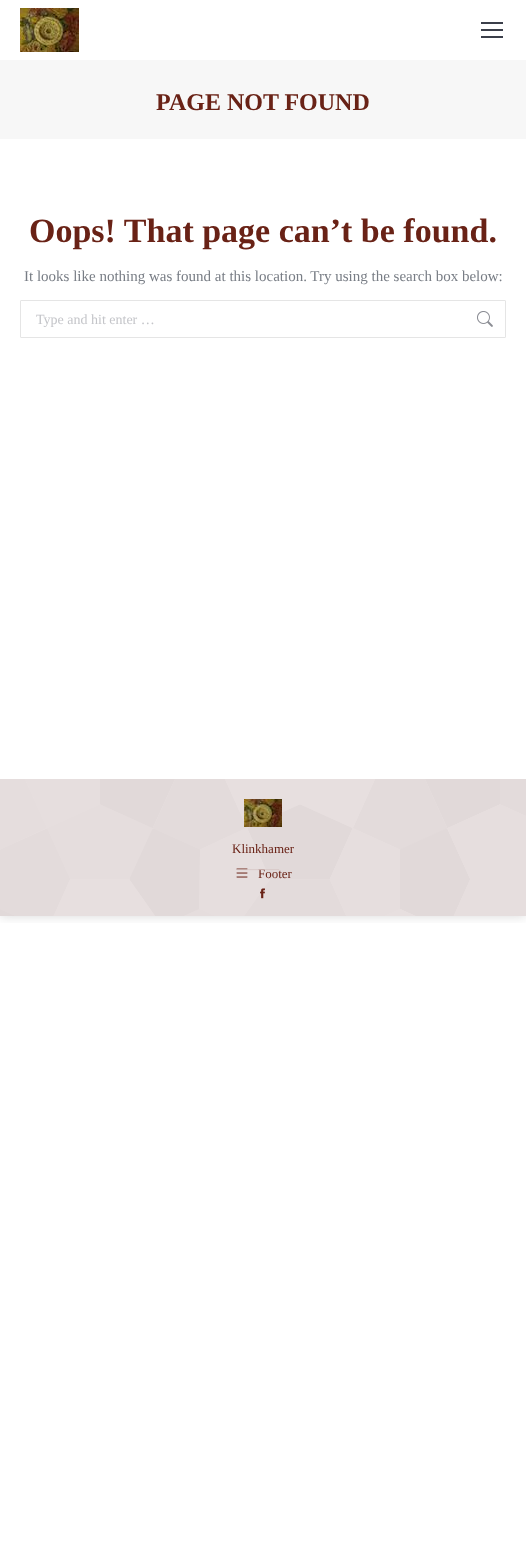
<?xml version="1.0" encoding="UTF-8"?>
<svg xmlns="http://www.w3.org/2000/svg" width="526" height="1563">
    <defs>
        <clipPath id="clip1"><rect x="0" y="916" width="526" height="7"/></clipPath>
        <filter id="blur1" x="-50%" y="-200%" width="200%" height="500%"><feGaussianBlur stdDeviation="6"/></filter>
    </defs>
    <rect width="100%" height="100%" fill="#FFFFFF"/>
    <g clip-path="url(#clip1)">
        <rect x="0" y="0" width="526" height="916" fill="#000000" fill-opacity="0.15" filter="url(#blur1)"/>
    </g>
    <image x="20" y="8" width="59" height="44" href="img_01.png"/>
    <rect x="481" y="22" width="22" height="2" fill="#3B3F4A"/>
    <rect x="481" y="29" width="22" height="2" fill="#3B3F4A"/>
    <rect x="481" y="36" width="22" height="2" fill="#3B3F4A"/>
    <rect x="0" y="60" width="526" height="79" fill="#F7F7F7"/>
    <text x="156" y="110" font-family="Liberation Serif" font-size="24" font-weight="700" fill="#692216">PAGE NOT FOUND</text>
    <text x="29" y="242" font-family="Liberation Serif" font-size="34" font-weight="700" fill="#692216">Oops! That page can’t be found.</text>
    <text x="24" y="281" font-family="Liberation Serif" font-size="15" fill="#787D85">It looks like nothing was found at this location. Try using the search box below:</text>
    <rect x="20.5" y="300.5" width="485" height="37" rx="0.5" fill="none" stroke="#E5E5E5"/>
    <text x="36" y="324" font-family="Liberation Serif" font-size="14" fill="#C4C5C9">Type and hit enter …</text>
    <image x="477" y="311" width="16" height="16" href="img_02.png"/>
    <rect x="0" y="779" width="526" height="137" fill="#ECE2E1"/>
    <image x="0" y="779" width="526" height="137" href="img_03.png"/>
    <image x="244" y="799" width="38" height="28" href="img_04.png"/>
    <text x="232" y="853" font-family="Liberation Serif" font-size="13" fill="#692216">Klinkhamer</text>
    <image x="236" y="868" width="12" height="10" href="img_05.png"/>
    <text x="258" y="878" font-family="Liberation Serif" font-size="13" fill="#692216">Footer</text>
    <text x="237" y="873" font-family="Liberation Serif" font-size="14" fill="#D5C5C3">———</text>
    <image x="260" y="888" width="5" height="11" href="img_06.png"/>
</svg>
